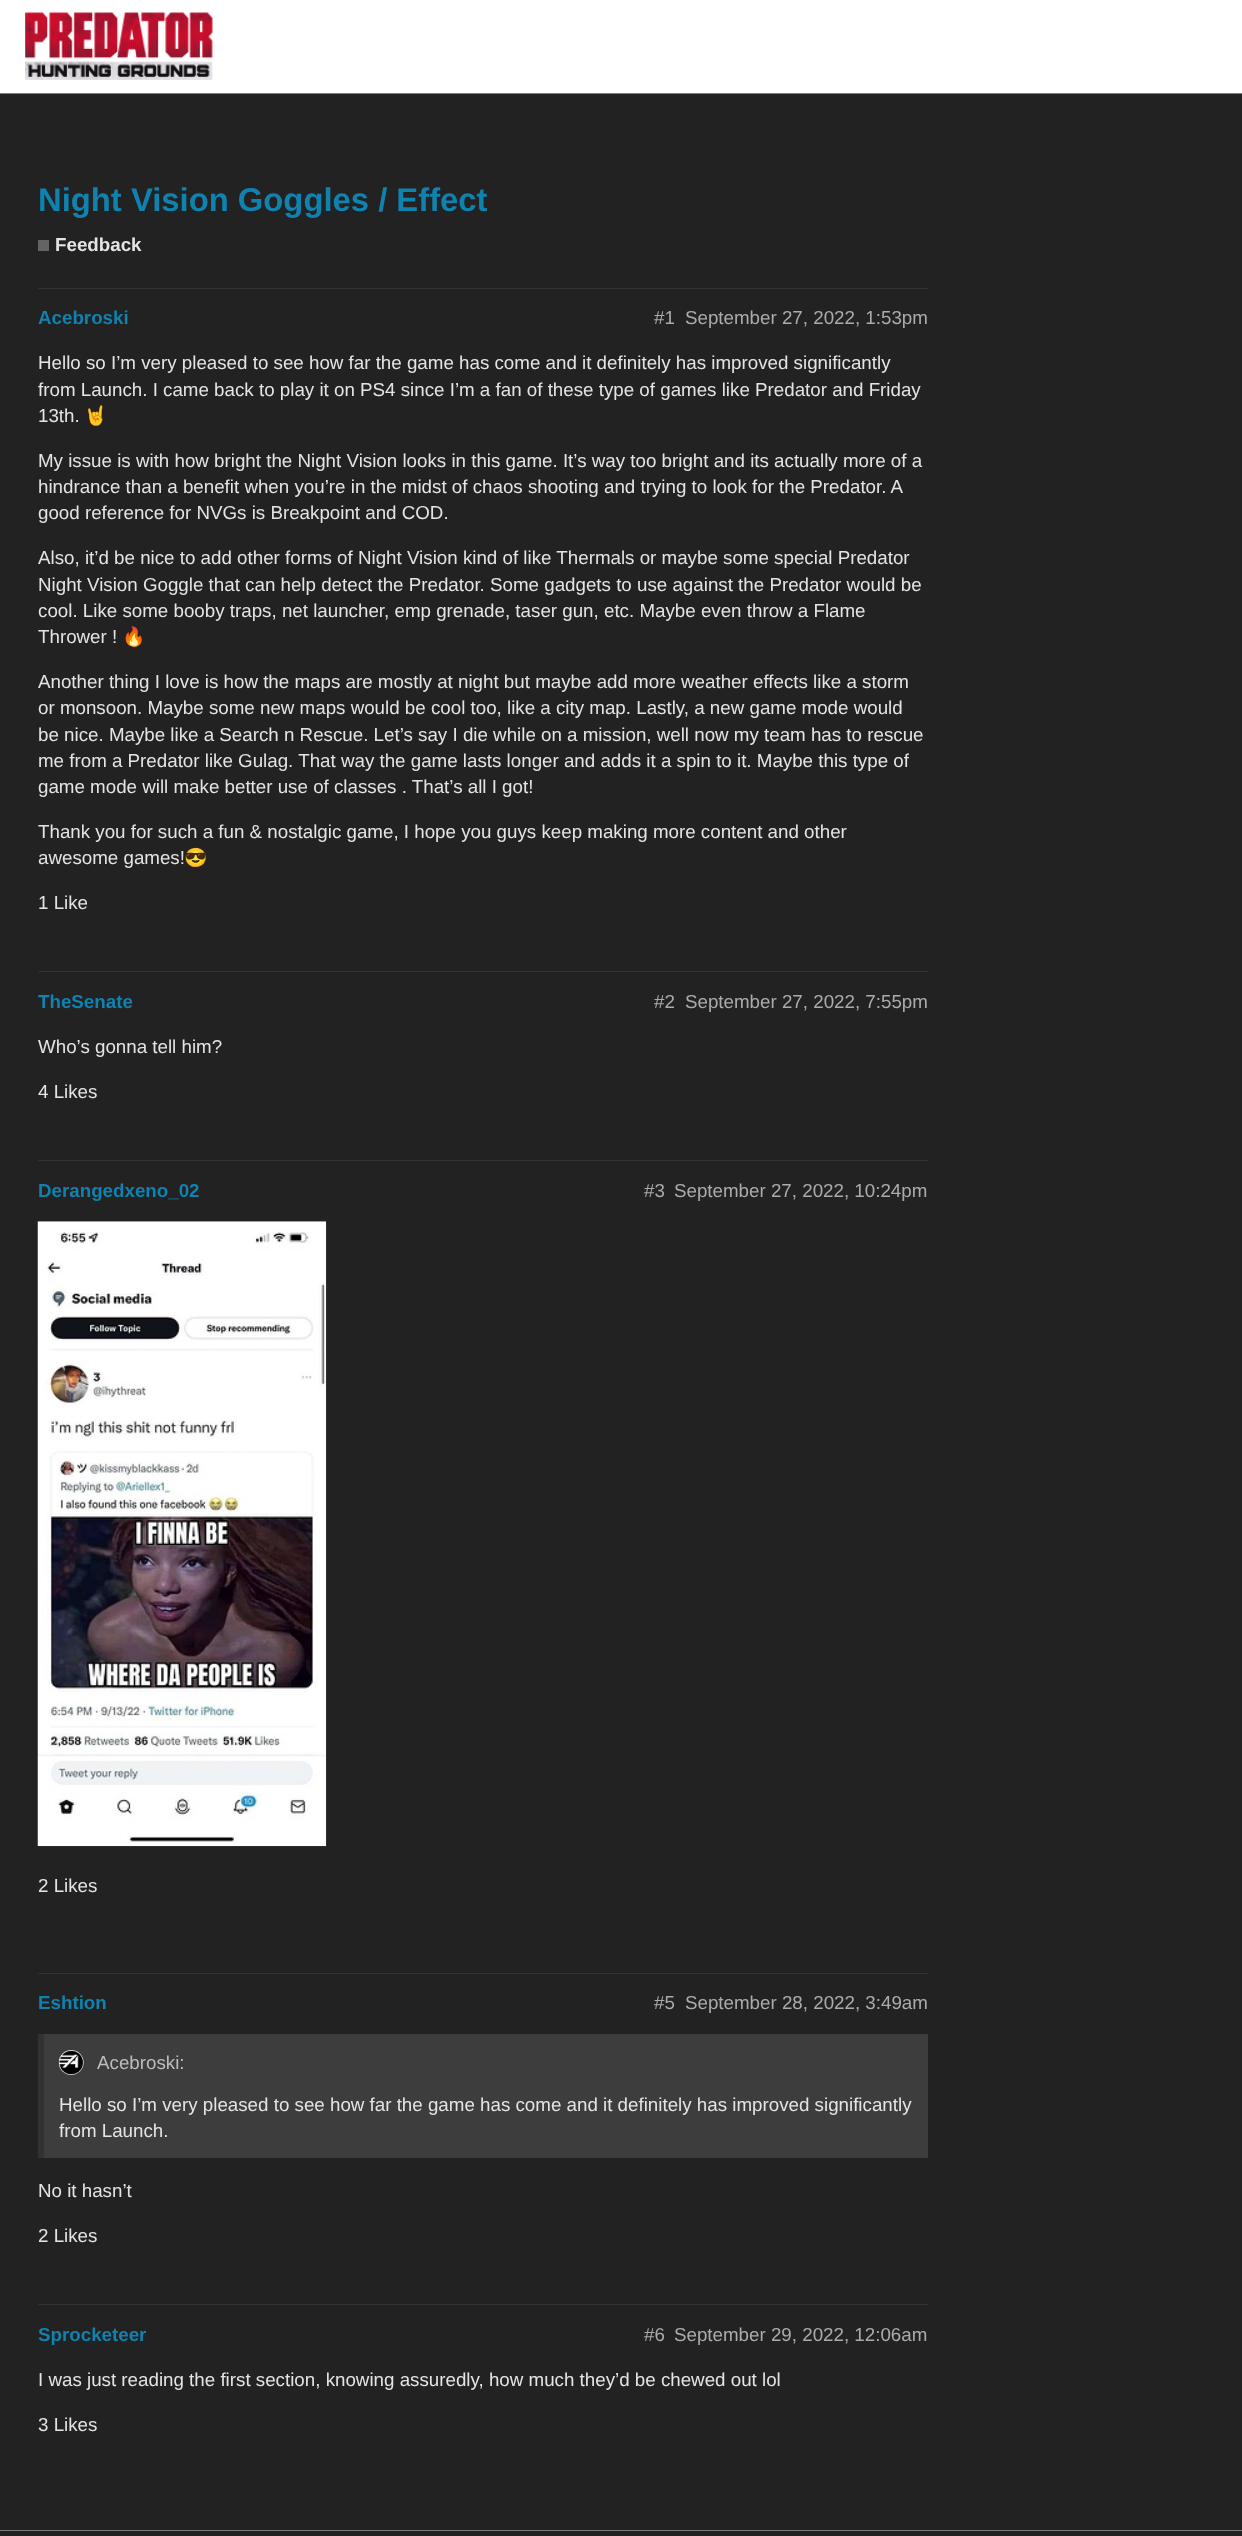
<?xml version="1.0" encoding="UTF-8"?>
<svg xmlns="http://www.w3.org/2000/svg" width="1242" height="2536">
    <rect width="100%" height="100%" fill="#222222"/>
    <rect x="0" y="0" width="1242" height="93" fill="#FFFFFF"/>
    <rect x="0" y="93" width="1242" height="1" fill="#7D7D7D"/>
    <image x="25" y="12" width="188" height="68" href="img_01.png"/>
    <text x="38" y="211" font-family="Liberation Sans" font-size="32.8" font-weight="700" fill="#0F82AF">Night Vision Goggles / Effect</text>
    <rect x="38" y="240" width="11" height="11" fill="#646464"/>
    <text x="55" y="251" font-family="Liberation Sans" font-size="18.75" font-weight="700" fill="#E4E4E4">Feedback</text>
    <rect x="38" y="288" width="890" height="1" fill="#323232"/>
    <text x="38" y="324" font-family="Liberation Sans" font-size="18.75" font-weight="700" fill="#0F82AF">Acebroski</text>
    <text x="654" y="324" font-family="Liberation Sans" font-size="18.75" fill="#ABABAB">#1</text>
    <text x="685" y="324" font-family="Liberation Sans" font-size="18.75" fill="#ABABAB">September 27, 2022, 1:53pm</text>
    <text font-family="Liberation Sans" font-size="18.75" fill="#E4E4E4">
        <tspan x="38" y="369">Hello so I’m very pleased to see how far the game has come and it definitely has improved significantly</tspan>
        <tspan x="38" y="396">from Launch. I came back to play it on PS4 since I’m a fan of these type of games like Predator and Friday</tspan>
        <tspan x="38" y="422">13th.</tspan>
    </text>
    <text x="84" y="422" font-family="Noto Color Emoji" font-size="18.75" fill="#E4E4E4">🤘</text>
    <text font-family="Liberation Sans" font-size="18.75" fill="#E4E4E4">
        <tspan x="38" y="467">My issue is with how bright the Night Vision looks in this game. It’s way too bright and its actually more of a</tspan>
        <tspan x="38" y="493">hindrance than a benefit when you’re in the midst of chaos shooting and trying to look for the Predator. A</tspan>
        <tspan x="38" y="519">good reference for NVGs is Breakpoint and COD.</tspan>
    </text>
    <text font-family="Liberation Sans" font-size="18.75" fill="#E4E4E4">
        <tspan x="38" y="564">Also, it’d be nice to add other forms of Night Vision kind of like Thermals or maybe some special Predator</tspan>
        <tspan x="38" y="591">Night Vision Goggle that can help detect the Predator. Some gadgets to use against the Predator would be</tspan>
        <tspan x="38" y="617">cool. Like some booby traps, net launcher, emp grenade, taser gun, etc. Maybe even throw a Flame</tspan>
        <tspan x="38" y="643">Thrower !</tspan>
    </text>
    <text x="122" y="643" font-family="Noto Color Emoji" font-size="18.75" fill="#E4E4E4">🔥</text>
    <text font-family="Liberation Sans" font-size="18.75" fill="#E4E4E4">
        <tspan x="38" y="688">Another thing I love is how the maps are mostly at night but maybe add more weather effects like a storm</tspan>
        <tspan x="38" y="714">or monsoon. Maybe some new maps would be cool too, like a city map. Lastly, a new game mode would</tspan>
        <tspan x="38" y="741">be nice. Maybe like a Search n Rescue. Let’s say I die while on a mission, well now my team has to rescue</tspan>
        <tspan x="38" y="767">me from a Predator like Gulag. That way the game lasts longer and adds it a spin to it. Maybe this type of</tspan>
        <tspan x="38" y="793">game mode will make better use of classes . That’s all I got!</tspan>
    </text>
    <text font-family="Liberation Sans" font-size="18.75" fill="#E4E4E4">
        <tspan x="38" y="838">Thank you for such a fun &amp; nostalgic game, I hope you guys keep making more content and other</tspan>
        <tspan x="38" y="864">awesome games!</tspan>
    </text>
    <text x="184" y="864" font-family="Noto Color Emoji" font-size="18.75" fill="#E4E4E4">😎</text>
    <text x="38" y="909" font-family="Liberation Sans" font-size="18.75" fill="#E4E4E4">1 Like</text>
    <rect x="38" y="971" width="890" height="1" fill="#323232"/>
    <text x="38" y="1008" font-family="Liberation Sans" font-size="18.75" font-weight="700" fill="#0F82AF">TheSenate</text>
    <text x="654" y="1008" font-family="Liberation Sans" font-size="18.75" fill="#ABABAB">#2</text>
    <text x="685" y="1008" font-family="Liberation Sans" font-size="18.75" fill="#ABABAB">September 27, 2022, 7:55pm</text>
    <text x="38" y="1053" font-family="Liberation Sans" font-size="18.75" fill="#E4E4E4">Who’s gonna tell him?</text>
    <text x="38" y="1098" font-family="Liberation Sans" font-size="18.75" fill="#E4E4E4">4 Likes</text>
    <rect x="38" y="1160" width="890" height="1" fill="#323232"/>
    <text x="38" y="1197" font-family="Liberation Sans" font-size="18.75" font-weight="700" fill="#0F82AF">Derangedxeno_02</text>
    <text x="644" y="1197" font-family="Liberation Sans" font-size="18.75" fill="#ABABAB">#3</text>
    <text x="674" y="1197" font-family="Liberation Sans" font-size="18.75" fill="#ABABAB">September 27, 2022, 10:24pm</text>
    <image x="37" y="1221" width="290" height="626" href="img_02.png"/>
    <text x="38" y="1892" font-family="Liberation Sans" font-size="18.75" fill="#E4E4E4">2 Likes</text>
    <rect x="38" y="1973" width="890" height="1" fill="#323232"/>
    <text x="38" y="2009" font-family="Liberation Sans" font-size="18.75" font-weight="700" fill="#0F82AF">Eshtion</text>
    <text x="654" y="2009" font-family="Liberation Sans" font-size="18.75" fill="#ABABAB">#5</text>
    <text x="685" y="2009" font-family="Liberation Sans" font-size="18.75" fill="#ABABAB">September 28, 2022, 3:49am</text>
    <rect x="44" y="2034" width="884" height="124" fill="#3D3D3D"/>
    <rect x="38" y="2034" width="6" height="124" fill="#323232"/>
    <image x="58" y="2050" width="26" height="25" href="img_03.png"/>
    <text x="97" y="2069" font-family="Liberation Sans" font-size="18.75" fill="#BDBDBD">Acebroski:</text>
    <text font-family="Liberation Sans" font-size="18.75" fill="#E4E4E4">
        <tspan x="59" y="2111">Hello so I’m very pleased to see how far the game has come and it definitely has improved significantly</tspan>
        <tspan x="59" y="2137">from Launch.</tspan>
    </text>
    <text x="38" y="2197" font-family="Liberation Sans" font-size="18.75" fill="#E4E4E4">No it hasn’t</text>
    <text x="38" y="2242" font-family="Liberation Sans" font-size="18.75" fill="#E4E4E4">2 Likes</text>
    <rect x="38" y="2304" width="890" height="1" fill="#323232"/>
    <text x="38" y="2341" font-family="Liberation Sans" font-size="18.75" font-weight="700" fill="#0F82AF">Sprocketeer</text>
    <text x="644" y="2341" font-family="Liberation Sans" font-size="18.75" fill="#ABABAB">#6</text>
    <text x="674" y="2341" font-family="Liberation Sans" font-size="18.75" fill="#ABABAB">September 29, 2022, 12:06am</text>
    <text x="38" y="2386" font-family="Liberation Sans" font-size="18.75" fill="#E4E4E4">I was just reading the first section, knowing assuredly, how much they’d be chewed out lol</text>
    <text x="38" y="2431" font-family="Liberation Sans" font-size="18.75" fill="#E4E4E4">3 Likes</text>
    <rect x="0" y="2530" width="1242" height="1" fill="#7D7D7D"/>
</svg>
